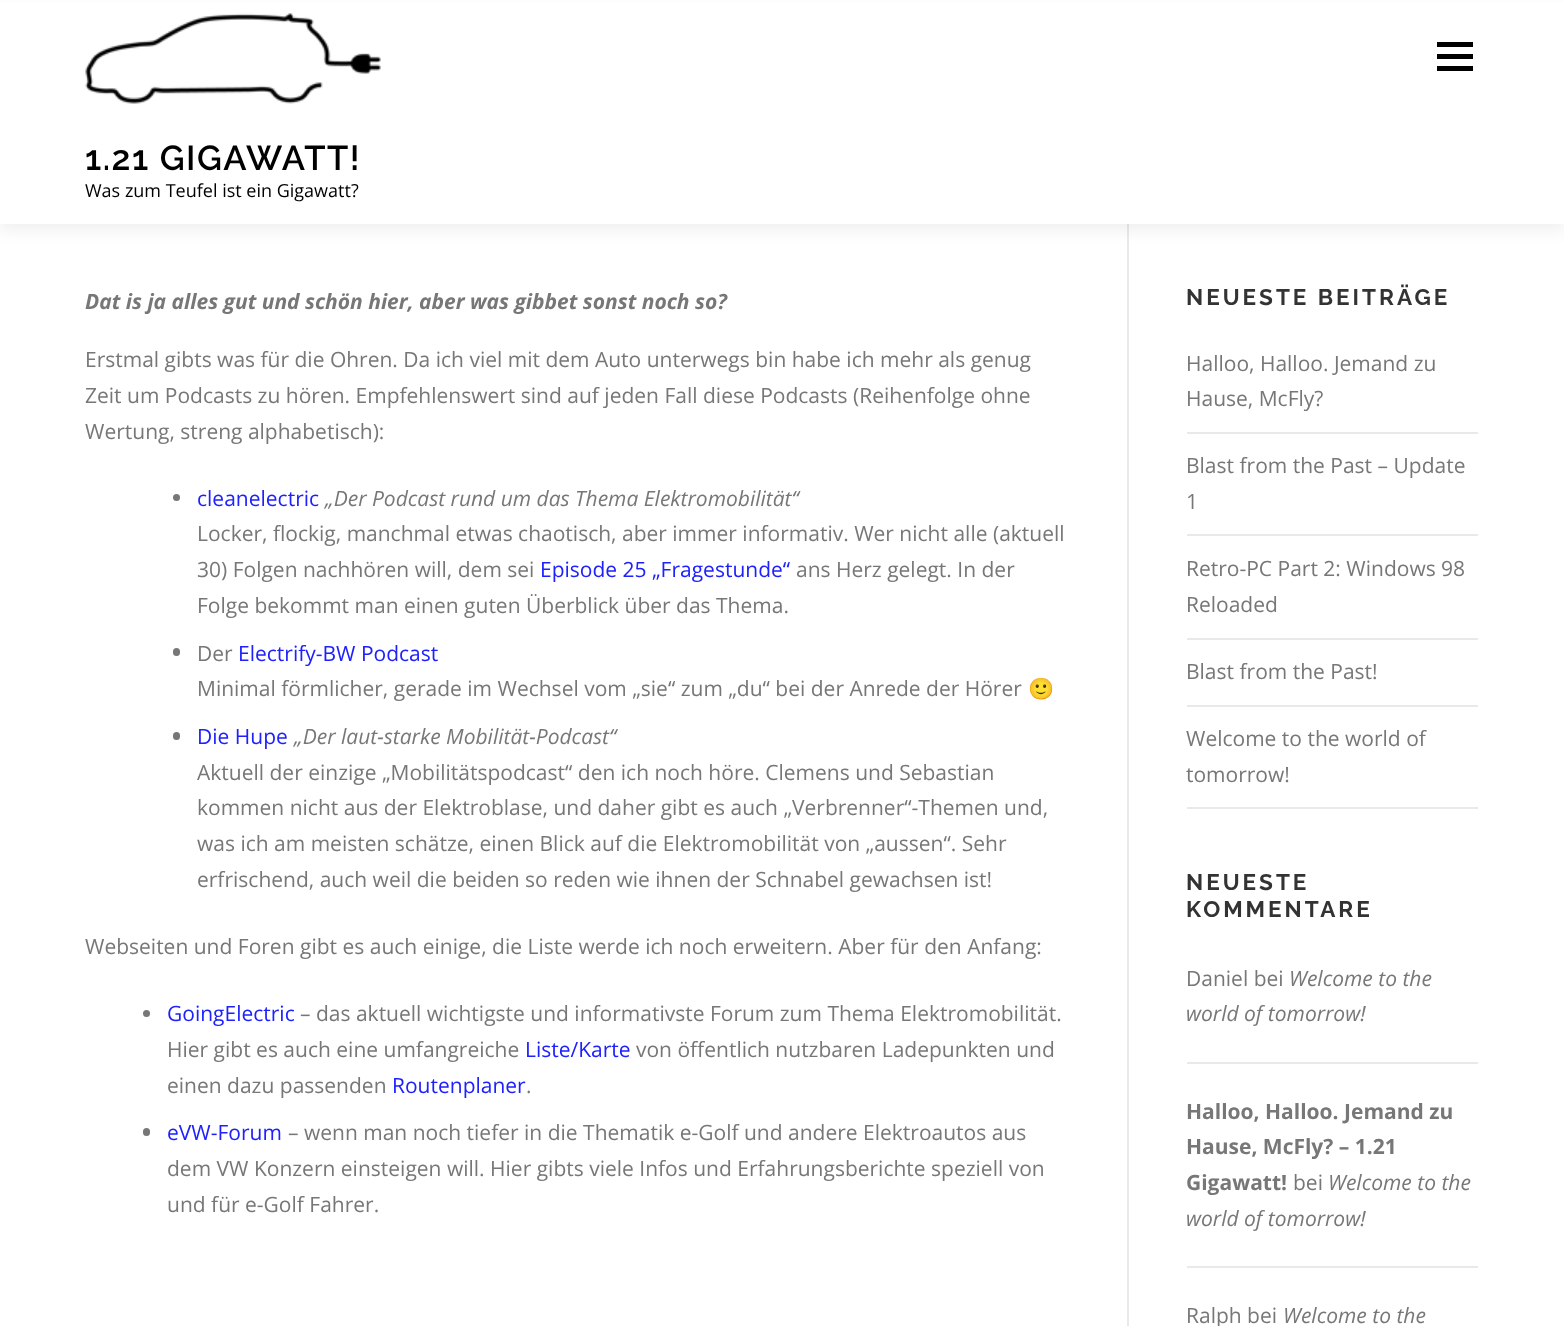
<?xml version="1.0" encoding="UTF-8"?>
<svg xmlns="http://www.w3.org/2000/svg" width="1564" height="1326">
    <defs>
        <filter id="blur1" x="-50%" y="-200%" width="200%" height="500%"><feGaussianBlur stdDeviation="7.5"/></filter>
    </defs>
    <rect width="100%" height="100%" fill="#FFFFFF"/>
    <rect x="1127" y="224" width="2" height="1102" fill="#E9E9E9"/>
    <rect x="0" y="8" width="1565" height="223" fill="#323232" fill-opacity="0.06" filter="url(#blur1)"/>
    <rect x="0" y="2" width="1564" height="222" fill="#FFFFFF"/>
    <rect x="1437" y="54" width="36" height="5" fill="#000000"/>
    <rect x="1437" y="42" width="36" height="5" fill="#000000"/>
    <rect x="1437" y="66" width="36" height="5" fill="#000000"/>
    <image x="85" y="13" width="296" height="91" href="img_01.png"/>
    <text x="85" y="170" font-family="Raleway" font-size="34.5" font-weight="600" letter-spacing="1.5" fill="#000000">1.21 GIGAWATT!</text>
    <text x="85" y="197" font-family="Open Sans" font-size="18" fill="#000000">Was zum Teufel ist ein Gigawatt?</text>
    <text x="85" y="309" font-family="Open Sans" font-size="21" font-weight="700" font-style="italic" fill="#777777">Dat is ja alles gut und schön hier, aber was gibbet sonst noch so?</text>
    <text font-family="Open Sans" font-size="21" fill="#777777">
        <tspan x="85" y="367">Erstmal gibts was für die Ohren. Da ich viel mit dem Auto unterwegs bin habe ich mehr als genug</tspan>
        <tspan x="85" y="403">Zeit um Podcasts zu hören. Empfehlenswert sind auf jeden Fall diese Podcasts (Reihenfolge ohne</tspan>
        <tspan x="85" y="439">Wertung, streng alphabetisch):</tspan>
    </text>
    <circle cx="176.5" cy="497.5" r="3.5" fill="#777777"/>
    <text x="197" y="506" font-family="Open Sans" font-size="21" fill="#1E21FC">cleanelectric</text>
    <text x="325" y="506" font-family="Open Sans" font-size="21" font-style="italic" fill="#777777">„Der Podcast rund um das Thema Elektromobilität“</text>
    <text font-family="Open Sans" font-size="21" fill="#777777">
        <tspan x="197" y="541">Locker, flockig, manchmal etwas chaotisch, aber immer informativ. Wer nicht alle (aktuell</tspan>
        <tspan x="197" y="577">30) Folgen nachhören will, dem sei</tspan>
    </text>
    <text x="540" y="577" font-family="Open Sans" font-size="21" fill="#1E21FC">Episode 25 „Fragestunde“</text>
    <text x="796" y="577" font-family="Open Sans" font-size="21" fill="#777777">ans Herz gelegt. In der</text>
    <text x="197" y="613" font-family="Open Sans" font-size="21" fill="#777777">Folge bekommt man einen guten Überblick über das Thema.</text>
    <rect x="173" y="648" width="7" height="8" rx="3.5" fill="#777777"/>
    <text x="197" y="661" font-family="Open Sans" font-size="21" fill="#777777">Der</text>
    <text x="238" y="661" font-family="Open Sans" font-size="21" fill="#1E21FC">Electrify-BW Podcast</text>
    <text x="197" y="696" font-family="Open Sans" font-size="21" fill="#777777">Minimal förmlicher, gerade im Wechsel vom „sie“ zum „du“ bei der Anrede der Hörer</text>
    <text x="1028" y="696" font-family="Noto Color Emoji" font-size="21" fill="#777777">🙂</text>
    <rect x="173" y="732" width="7" height="8" rx="3.5" fill="#777777"/>
    <text x="197" y="744" font-family="Open Sans" font-size="21" fill="#1E21FC">Die Hupe</text>
    <text x="294" y="744" font-family="Open Sans" font-size="21" font-style="italic" fill="#777777">„Der laut-starke Mobilität-Podcast“</text>
    <text font-family="Open Sans" font-size="21" fill="#777777">
        <tspan x="197" y="780">Aktuell der einzige „Mobilitätspodcast“ den ich noch höre. Clemens und Sebastian</tspan>
        <tspan x="197" y="815">kommen nicht aus der Elektroblase, und daher gibt es auch „Verbrenner“-Themen und,</tspan>
        <tspan x="197" y="851">was ich am meisten schätze, einen Blick auf die Elektromobilität von „aussen“. Sehr</tspan>
        <tspan x="197" y="887">erfrischend, auch weil die beiden so reden wie ihnen der Schnabel gewachsen ist!</tspan>
    </text>
    <text x="85" y="954" font-family="Open Sans" font-size="21" fill="#777777">Webseiten und Foren gibt es auch einige, die Liste werde ich noch erweitern. Aber für den Anfang:</text>
    <circle cx="146.5" cy="1013.5" r="3.5" fill="#777777"/>
    <text x="167" y="1021" font-family="Open Sans" font-size="21" fill="#1E21FC">GoingElectric</text>
    <text x="300" y="1021" font-family="Open Sans" font-size="21" fill="#777777">– das aktuell wichtigste und informativste Forum zum Thema Elektromobilität.</text>
    <text x="167" y="1057" font-family="Open Sans" font-size="21" fill="#777777">Hier gibt es auch eine umfangreiche</text>
    <text x="525" y="1057" font-family="Open Sans" font-size="21" fill="#1E21FC">Liste/Karte</text>
    <text x="636" y="1057" font-family="Open Sans" font-size="21" fill="#777777">von öffentlich nutzbaren Ladepunkten und</text>
    <text x="167" y="1093" font-family="Open Sans" font-size="21" fill="#777777">einen dazu passenden</text>
    <text x="392" y="1093" font-family="Open Sans" font-size="21" fill="#1E21FC">Routenplaner</text>
    <text x="526" y="1093" font-family="Open Sans" font-size="21" fill="#777777">.</text>
    <rect x="143" y="1128" width="7" height="8" rx="3.5" fill="#777777"/>
    <text x="167" y="1140" font-family="Open Sans" font-size="21" fill="#1E21FC">eVW-Forum</text>
    <text x="288" y="1140" font-family="Open Sans" font-size="21" fill="#777777">– wenn man noch tiefer in die Thematik e-Golf und andere Elektroautos aus</text>
    <text font-family="Open Sans" font-size="21" fill="#777777">
        <tspan x="167" y="1176">dem VW Konzern einsteigen will. Hier gibts viele Infos und Erfahrungsberichte speziell von</tspan>
        <tspan x="167" y="1212">und für e-Golf Fahrer.</tspan>
    </text>
    <text x="1186" y="305" font-family="Raleway" font-size="22.5" font-weight="700" letter-spacing="3" fill="#333333">NEUESTE BEITRÄGE</text>
    <rect x="1187" y="432" width="291" height="2" fill="#E9E9E9"/>
    <text font-family="Open Sans" font-size="21" fill="#777777">
        <tspan x="1186" y="371">Halloo, Halloo. Jemand zu</tspan>
        <tspan x="1186" y="406">Hause, McFly?</tspan>
    </text>
    <rect x="1187" y="534" width="291" height="2" fill="#E9E9E9"/>
    <text font-family="Open Sans" font-size="21" fill="#777777">
        <tspan x="1186" y="473">Blast from the Past – Update</tspan>
        <tspan x="1186" y="509">1</tspan>
    </text>
    <rect x="1187" y="638" width="291" height="2" fill="#E9E9E9"/>
    <text font-family="Open Sans" font-size="21" fill="#777777">
        <tspan x="1186" y="576">Retro-PC Part 2: Windows 98</tspan>
        <tspan x="1186" y="612">Reloaded</tspan>
    </text>
    <rect x="1187" y="705" width="291" height="2" fill="#E9E9E9"/>
    <text x="1186" y="679" font-family="Open Sans" font-size="21" fill="#777777">Blast from the Past!</text>
    <rect x="1187" y="807" width="291" height="2" fill="#E9E9E9"/>
    <text font-family="Open Sans" font-size="21" fill="#777777">
        <tspan x="1186" y="746">Welcome to the world of</tspan>
        <tspan x="1186" y="782">tomorrow!</tspan>
    </text>
    <text font-family="Raleway" font-size="22.5" font-weight="700" letter-spacing="3" fill="#333333">
        <tspan x="1186" y="890">NEUESTE</tspan>
        <tspan x="1186" y="917">KOMMENTARE</tspan>
    </text>
    <rect x="1187" y="1062" width="291" height="2" fill="#E9E9E9"/>
    <text x="1186" y="986" font-family="Open Sans" font-size="21" fill="#777777">Daniel bei</text>
    <text x="1289" y="986" font-family="Open Sans" font-size="21" font-style="italic" fill="#777777">Welcome to the</text>
    <text x="1186" y="1021" font-family="Open Sans" font-size="21" font-style="italic" fill="#777777">world of tomorrow!</text>
    <rect x="1187" y="1266" width="291" height="2" fill="#E9E9E9"/>
    <text font-family="Open Sans" font-size="21" font-weight="700" fill="#777777">
        <tspan x="1186" y="1119">Halloo, Halloo. Jemand zu</tspan>
        <tspan x="1186" y="1154">Hause, McFly? – 1.21</tspan>
        <tspan x="1186" y="1190">Gigawatt!</tspan>
    </text>
    <text x="1293" y="1190" font-family="Open Sans" font-size="21" fill="#777777">bei</text>
    <text x="1328" y="1190" font-family="Open Sans" font-size="21" font-style="italic" fill="#777777">Welcome to the</text>
    <text x="1186" y="1226" font-family="Open Sans" font-size="21" font-style="italic" fill="#777777">world of tomorrow!</text>
    <text x="1186" y="1323" font-family="Open Sans" font-size="21" fill="#777777">Ralph bei</text>
    <text x="1283" y="1323" font-family="Open Sans" font-size="21" font-style="italic" fill="#777777">Welcome to the</text>
</svg>
